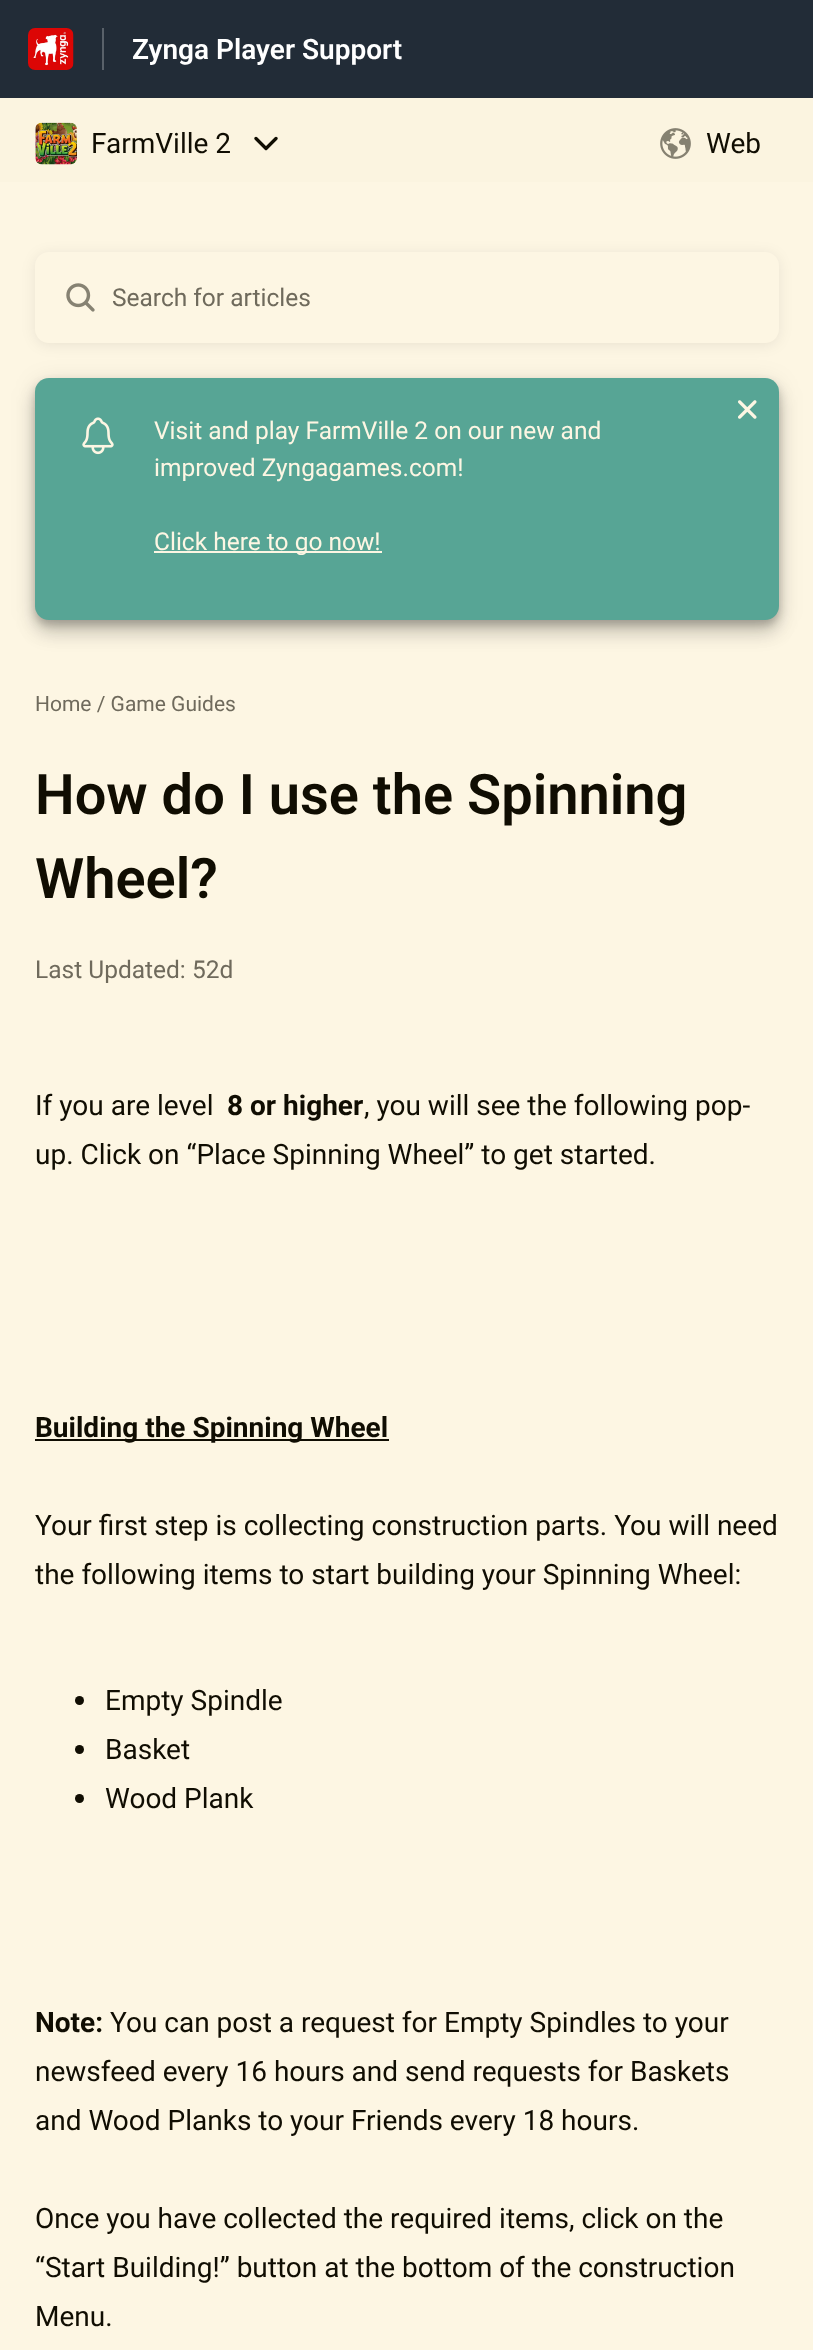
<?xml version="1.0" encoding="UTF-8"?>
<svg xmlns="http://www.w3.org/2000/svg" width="813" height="2350">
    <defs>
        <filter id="blur1" x="-50%" y="-200%" width="200%" height="500%"><feGaussianBlur stdDeviation="7"/></filter>
        <filter id="blur2" x="-50%" y="-200%" width="200%" height="500%"><feGaussianBlur stdDeviation="9"/></filter>
        <filter id="blur3" x="-50%" y="-200%" width="200%" height="500%"><feGaussianBlur stdDeviation="12"/></filter>
        <filter id="blur4" x="-50%" y="-200%" width="200%" height="500%"><feGaussianBlur stdDeviation="4.5"/></filter>
    </defs>
    <rect width="100%" height="100%" fill="#FBF4E0"/>
    <rect x="0" y="0" width="813" height="98" fill="#222C37"/>
    <rect x="102" y="28" width="2" height="42" fill="#596169"/>
    <image x="28" y="28" width="46" height="42" href="img_01.png"/>
    <text x="132" y="59" font-family="Roboto" font-size="28" font-weight="600" fill="#FFFFFF">Zynga Player Support</text>
    <image x="35" y="122" width="42" height="43" href="img_02.png"/>
    <text x="91" y="153" font-family="Roboto" font-size="28" fill="#100D02">FarmVille 2</text>
    <path d="M 256 138.5 L 266 148.5 L 276 138.5" fill="none" stroke="#100D02" stroke-width="3.3" stroke-linecap="round" stroke-linejoin="round"/>
    <image x="660" y="128" width="31" height="31" href="img_03.png"/>
    <text x="706" y="153" font-family="Roboto" font-size="28" fill="#100D02">Web</text>
    <rect x="0" y="182" width="813" height="473" fill="#FDF6E3"/>
    <rect x="35" y="254" width="744" height="91" rx="14" fill="#000000" fill-opacity="0.08" filter="url(#blur1)"/>
    <rect x="35" y="252" width="744" height="91" rx="14" fill="#FDF6E3"/>
    <image x="66" y="283" width="29" height="29" href="img_04.png"/>
    <text x="112" y="306" font-family="Roboto" font-size="24.5" fill="#6F6A5C">Search for articles</text>
    <rect x="35" y="392" width="744" height="242" rx="14" fill="#000000" fill-opacity="0.14" filter="url(#blur2)"/>
    <rect x="35" y="383" width="744" height="242" rx="14" fill="#000000" fill-opacity="0.12" filter="url(#blur3)"/>
    <rect x="35" y="383" width="744" height="242" rx="14" fill="#000000" fill-opacity="0.2" filter="url(#blur4)"/>
    <rect x="35" y="378" width="744" height="242" rx="14" fill="#57A595"/>
    <image x="738" y="400" width="19" height="19" href="img_05.png"/>
    <image x="82" y="417" width="32" height="38" href="img_06.png"/>
    <text font-family="Roboto" font-size="24.5" fill="#FDF6E3">
        <tspan x="154" y="439">Visit and play FarmVille 2 on our new and</tspan>
        <tspan x="154" y="476">improved Zyngagames.com!</tspan>
    </text>
    <rect x="154" y="551" width="228" height="2" fill="#FDF6E3"/>
    <text x="154" y="550" font-family="Roboto" font-size="24.5" fill="#FDF6E3">Click here to go now!</text>
    <rect x="0" y="655" width="813" height="1695" fill="#FDF6E3"/>
    <text x="35" y="711" font-family="Roboto" font-size="21" fill="#6F6A5C">Home / Game Guides</text>
    <text font-family="Roboto" font-size="56" font-weight="600" fill="#100D02">
        <tspan x="35" y="814">How do I use the Spinning</tspan>
        <tspan x="35" y="898">Wheel?</tspan>
    </text>
    <text x="35" y="978" font-family="Roboto" font-size="24.5" fill="#6F6A5C">Last Updated: 52d</text>
    <text x="35" y="1115" font-family="Roboto" font-size="28" fill="#100D02">If you are level</text>
    <text x="227" y="1115" font-family="Roboto" font-size="28" font-weight="700" fill="#100D02">8 or higher</text>
    <text x="364" y="1115" font-family="Roboto" font-size="28" fill="#100D02">, you will see the following pop-</text>
    <text x="35" y="1164" font-family="Roboto" font-size="28" fill="#100D02">up. Click on “Place Spinning Wheel” to get started.</text>
    <rect x="35" y="1439" width="354" height="2" fill="#100D02"/>
    <text x="35" y="1437" font-family="Roboto" font-size="28" font-weight="700" fill="#100D02">Building the Spinning Wheel</text>
    <text font-family="Roboto" font-size="28" fill="#100D02">
        <tspan x="35" y="1535">Your first step is collecting construction parts. You will need</tspan>
        <tspan x="35" y="1584">the following items to start building your Spinning Wheel:</tspan>
    </text>
    <circle cx="79.5" cy="1700.5" r="4.5" fill="#100D02"/>
    <text x="105" y="1710" font-family="Roboto" font-size="28" fill="#100D02">Empty Spindle</text>
    <circle cx="79.5" cy="1749.5" r="4.5" fill="#100D02"/>
    <text x="105" y="1759" font-family="Roboto" font-size="28" fill="#100D02">Basket</text>
    <circle cx="79.5" cy="1798.5" r="4.5" fill="#100D02"/>
    <text x="105" y="1808" font-family="Roboto" font-size="28" fill="#100D02">Wood Plank</text>
    <text x="35" y="2032" font-family="Roboto" font-size="28" font-weight="700" fill="#100D02">Note:</text>
    <text x="110" y="2032" font-family="Roboto" font-size="28" fill="#100D02">You can post a request for Empty Spindles to your</text>
    <text font-family="Roboto" font-size="28" fill="#100D02">
        <tspan x="35" y="2081">newsfeed every 16 hours and send requests for Baskets</tspan>
        <tspan x="35" y="2130">and Wood Planks to your Friends every 18 hours.</tspan>
    </text>
    <text font-family="Roboto" font-size="28" fill="#100D02">
        <tspan x="35" y="2228">Once you have collected the required items, click on the</tspan>
        <tspan x="35" y="2277">“Start Building!” button at the bottom of the construction</tspan>
        <tspan x="35" y="2326">Menu.</tspan>
    </text>
</svg>
